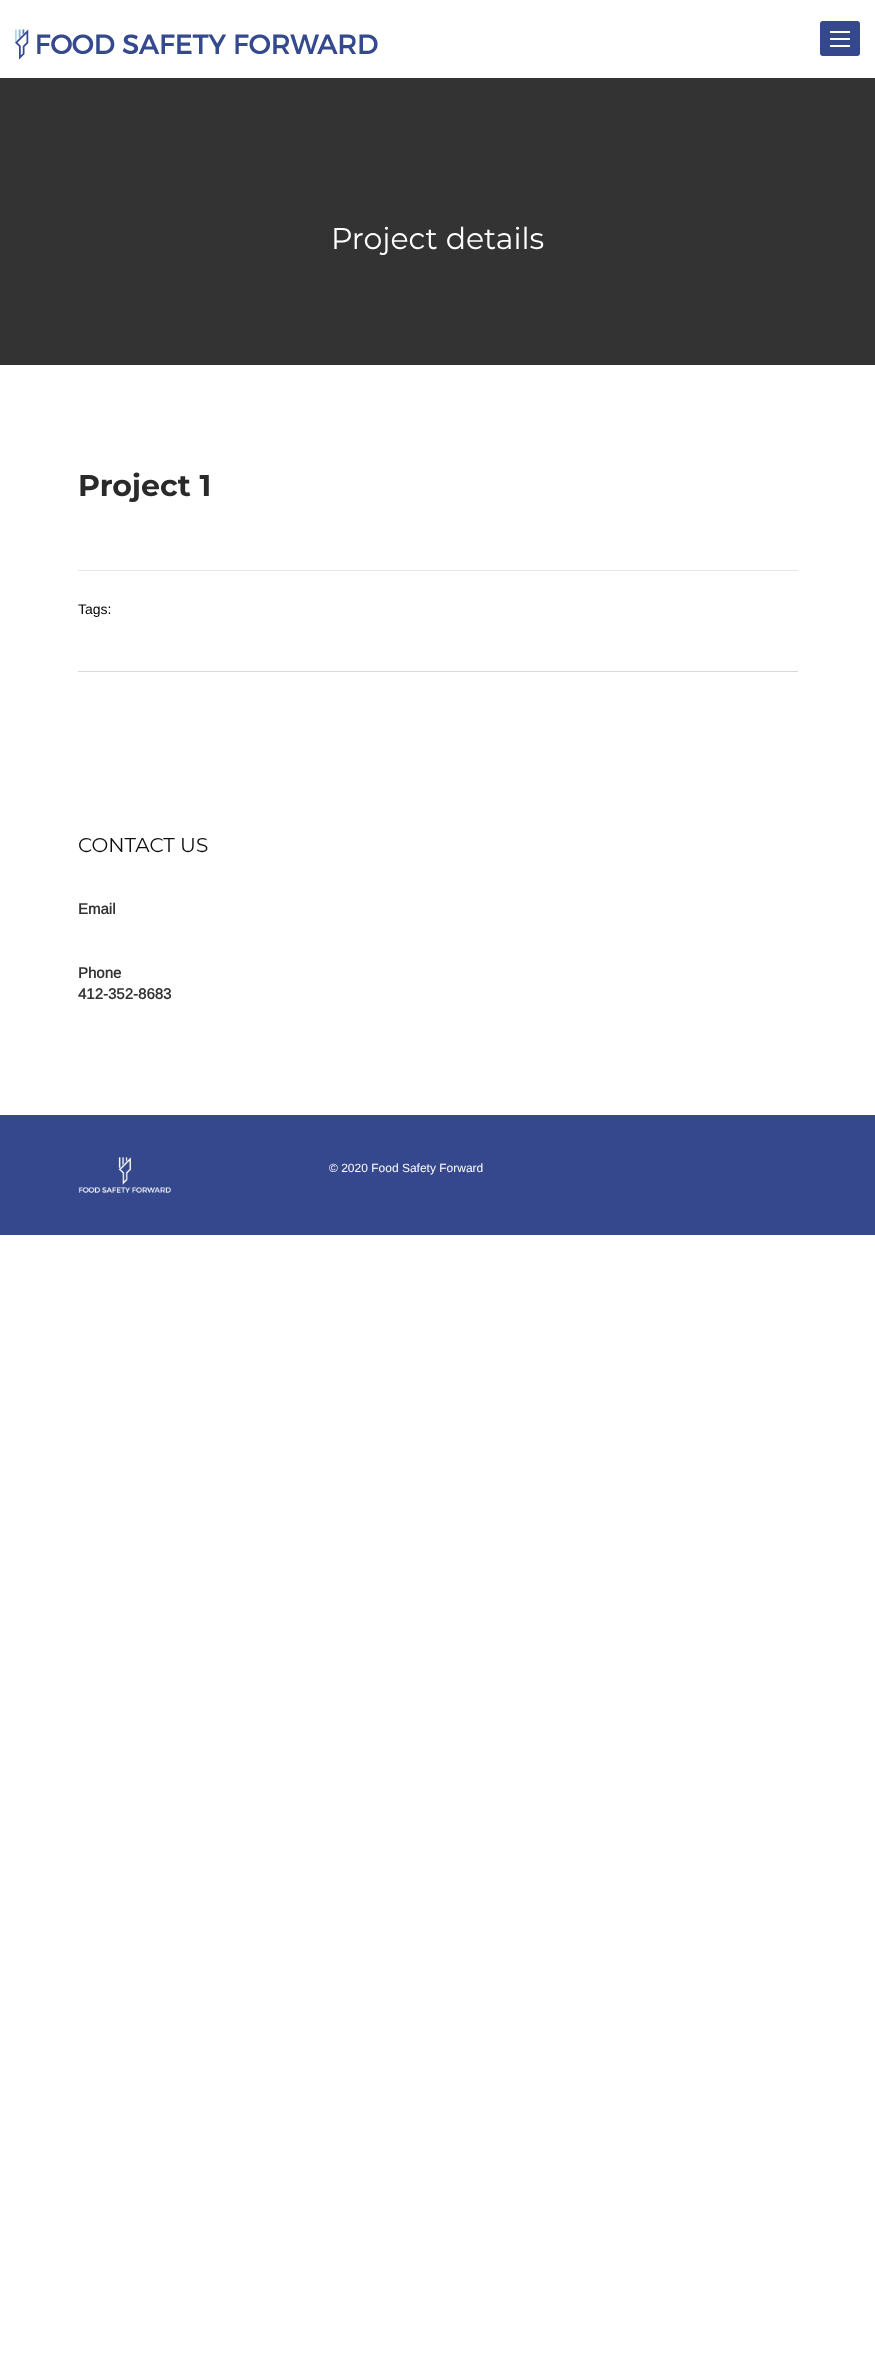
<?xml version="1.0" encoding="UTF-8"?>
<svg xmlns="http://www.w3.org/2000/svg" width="875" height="2361">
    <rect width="100%" height="100%" fill="#FFFFFF"/>
    <image x="15" y="29" width="363" height="31" href="img_01.png"/>
    <rect x="820" y="21" width="40" height="35" rx="3" fill="#36488D"/>
    <rect x="830" y="31" width="20" height="2" fill="#FFFFFF"/>
    <rect x="830" y="38" width="20" height="2" fill="#FFFFFF"/>
    <rect x="830" y="45" width="20" height="2" fill="#FFFFFF"/>
    <rect x="0" y="78" width="875" height="287" fill="#333333"/>
    <text x="331" y="249" font-family="Montserrat" font-size="30" font-weight="100" fill="#FFFFFF">Project details</text>
    <rect x="78" y="570" width="720" height="1" fill="#E6E6E6"/>
    <text x="78" y="496" font-family="Montserrat" font-size="30" font-weight="700" fill="#2A2A2A">Project 1</text>
    <rect x="78" y="671" width="720" height="1" fill="#D9D9D9"/>
    <text x="78" y="614" font-family="Arimo" font-size="14" fill="#000000">Tags:</text>
    <text x="78" y="852" font-family="Montserrat" font-size="20" font-weight="100" fill="#0D0D0D">CONTACT US</text>
    <text x="78" y="914" font-family="Arimo" font-size="15" font-weight="700" fill="#333333">Email</text>
    <text font-family="Arimo" font-size="15" font-weight="700" fill="#333333">
        <tspan x="78" y="978">Phone</tspan>
        <tspan x="78" y="999">412-352-8683</tspan>
    </text>
    <rect x="0" y="1115" width="875" height="120" fill="#36488D"/>
    <image x="78" y="1157" width="94" height="36" href="img_02.png"/>
    <text x="329" y="1172" font-family="Arimo" font-size="12" fill="#FFFFFF">© 2020 Food Safety Forward</text>
</svg>
